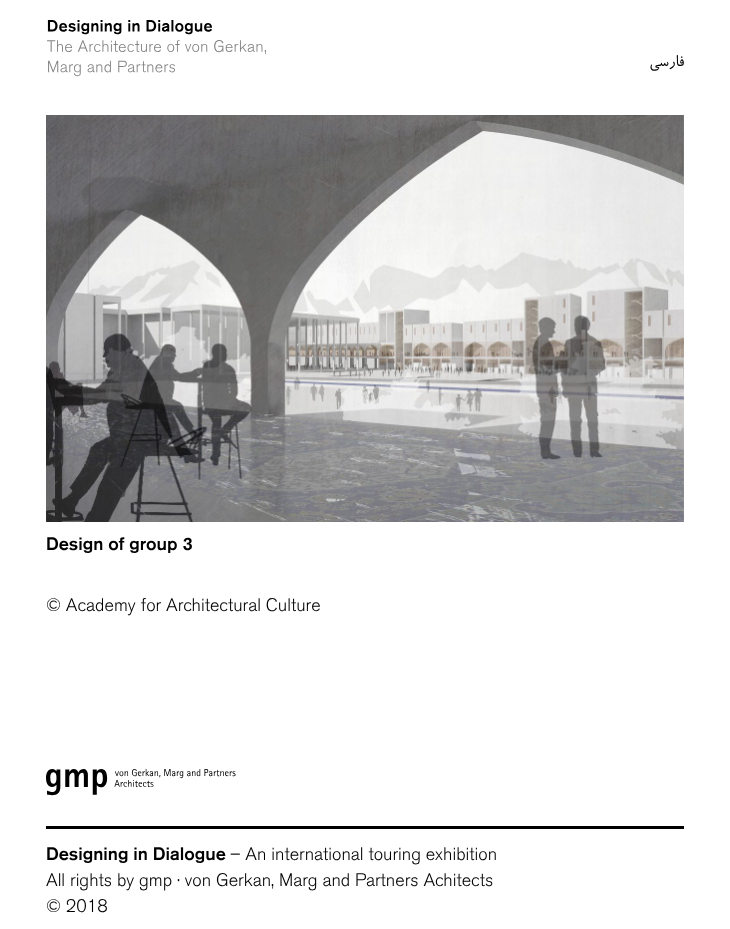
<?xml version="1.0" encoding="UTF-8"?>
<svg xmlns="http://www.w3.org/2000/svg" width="730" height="929">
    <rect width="100%" height="100%" fill="#FFFFFF"/>
    <image x="47" y="20" width="220" height="57" href="img_01.png"/>
    <text x="684" y="66" font-family="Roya" font-size="18" direction="rtl" fill="#000000">فارسی</text>
    <image x="46" y="115" width="638" height="407" href="img_02.png"/>
    <text x="46" y="550" font-family="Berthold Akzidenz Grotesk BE" font-size="18" font-weight="500" fill="#000000">Design of group 3</text>
    <text x="46" y="611" font-family="Berthold Akzidenz Grotesk BE" font-size="18" font-weight="300" fill="#000000">© Academy for Architectural Culture</text>
    <image x="46" y="769" width="190" height="27" href="img_03.png"/>
    <rect x="46" y="826" width="638" height="3" fill="#000000"/>
    <text x="46" y="860" font-family="Berthold Akzidenz Grotesk BE" font-size="18" font-weight="500" fill="#000000">Designing in Dialogue</text>
    <text x="230" y="860" font-family="Berthold Akzidenz Grotesk BE" font-size="18" font-weight="300" fill="#000000">– An international touring exhibition</text>
    <text font-family="Berthold Akzidenz Grotesk BE" font-size="18" font-weight="300" fill="#000000">
        <tspan x="46" y="886">All rights by gmp · von Gerkan, Marg and Partners Achitects</tspan>
        <tspan x="46" y="912">© 2018</tspan>
    </text>
</svg>
